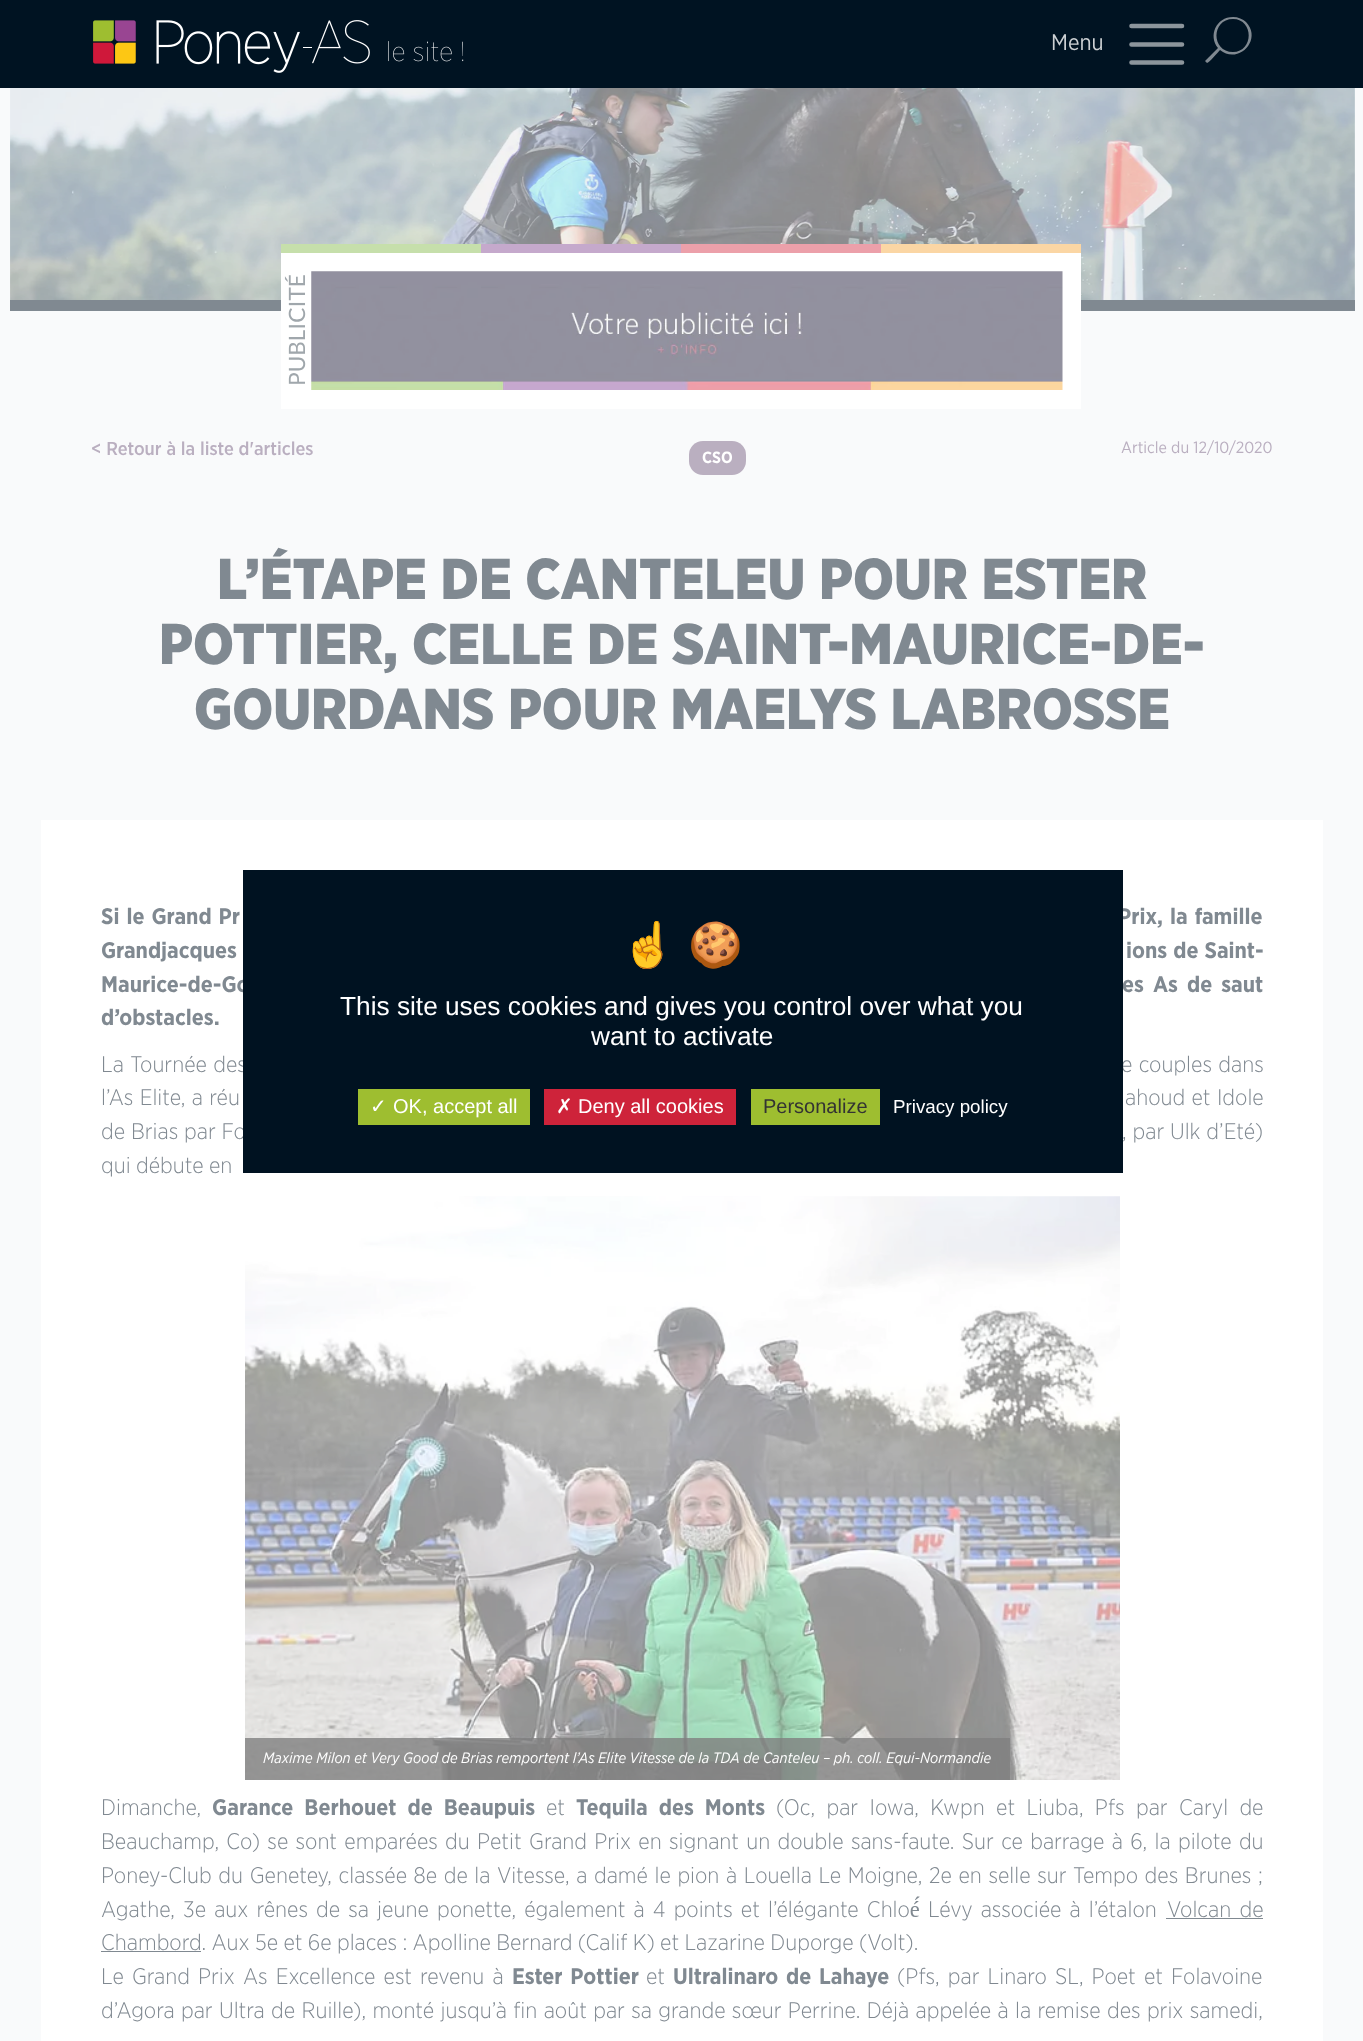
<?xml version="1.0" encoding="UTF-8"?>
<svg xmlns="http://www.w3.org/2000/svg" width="1363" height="2041">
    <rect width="100%" height="100%" fill="#F9FAFB"/>
    <rect x="0" y="0" width="1363" height="88" fill="#001322"/>
    <image x="93" y="20" width="371" height="53" href="img_01.png"/>
    <text x="1051" y="50" font-family="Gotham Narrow" font-size="22.5" fill="#CCD0D3">Menu</text>
    <path d="M 1131.5 26 H 1182 M 1131.5 44.5 H 1182 M 1131.5 62.5 H 1182" fill="none" stroke="#8C959C" stroke-width="4.6" stroke-linecap="round"/>
    <path d="M 1233 17 C 1238 17 1243 19 1246 22 C 1263 40 1238 65 1220 50 C 1218 52 1209 63 1207 63 L 1205 61 L 1218 48 C 1208 36 1216 17 1233 17 Z M 1233 52 C 1254 52 1254 19 1233 19 C 1211 19 1211 52 1233 52 Z" fill="#808991" fill-rule="evenodd"/>
    <image x="10" y="88" width="1345" height="212" href="img_02.png"/>
    <rect x="10" y="300" width="1345" height="11" fill="#808991"/>
    <rect x="281" y="253" width="800" height="156" fill="#FFFFFF"/>
    <rect x="281" y="244" width="200" height="9" fill="#C6DFAB"/>
    <rect x="481" y="244" width="200" height="9" fill="#C5A9CC"/>
    <rect x="681" y="244" width="200" height="9" fill="#ECA0AA"/>
    <rect x="881" y="244" width="200" height="9" fill="#FBD6A4"/>
    <text x="305" y="386" transform="rotate(-90 305 386)" font-family="Lato" font-size="22.5" fill="#A0A7AC">PUBLICITÉ</text>
    <image x="311" y="271" width="752" height="119" href="img_03.png"/>
    <text x="91" y="455" font-family="Gotham Narrow" font-size="18.75" font-weight="500" fill="#BAAFC0">&lt; Retour à la liste d'articles</text>
    <text x="1121" y="453" font-family="Gotham Narrow" font-size="16.25" fill="#BAAFC0">Article du 12/10/2020</text>
    <rect x="689" y="441" width="57" height="34" rx="14" fill="#BAAFC0"/>
    <text x="702" y="463" font-family="Gotham Narrow" font-size="16.25" font-weight="700" fill="#FFFFFF">CSO</text>
    <text x="217" y="599" font-family="Gotham Narrow" font-size="57.5" font-weight="900" fill="#808991">L’ÉTAPE DE CANTELEU POUR ESTER</text>
    <text x="159" y="664" font-family="Gotham Narrow" font-size="57.5" font-weight="900" fill="#808991">POTTIER, CELLE DE SAINT-MAURICE-DE-</text>
    <text x="194" y="729" font-family="Gotham Narrow" font-size="57.5" font-weight="900" fill="#808991">GOURDANS POUR MAELYS LABROSSE</text>
    <rect x="41" y="820" width="1282" height="1221" fill="#FFFFFF"/>
    <text x="101" y="924" word-spacing="2" font-family="Gotham Narrow" font-size="22.5" font-weight="700" fill="#808991">Si le Grand Pr</text>
    <text x="1118" y="924" word-spacing="2" font-family="Gotham Narrow" font-size="22.5" font-weight="700" fill="#808991">Prix, la famille</text>
    <text x="101" y="958" word-spacing="1" font-family="Gotham Narrow" font-size="22.5" font-weight="700" fill="#808991">Grandjacques</text>
    <text x="1126" y="958" word-spacing="1" font-family="Gotham Narrow" font-size="22.5" font-weight="700" fill="#808991">ions de Saint-</text>
    <text x="101" y="992" word-spacing="4" font-family="Gotham Narrow" font-size="22.5" font-weight="700" fill="#808991">Maurice-de-Go</text>
    <text x="1122" y="992" word-spacing="4" font-family="Gotham Narrow" font-size="22.5" font-weight="700" fill="#808991">es As de saut</text>
    <text x="101" y="1025" font-family="Gotham Narrow" font-size="22.5" font-weight="700" fill="#808991">d’obstacles.</text>
    <text x="101" y="1072" word-spacing="1" font-family="Gotham Narrow" font-size="22.5" font-weight="300" fill="#808991">La Tournée des</text>
    <text x="1121" y="1072" word-spacing="1" font-family="Gotham Narrow" font-size="22.5" font-weight="300" fill="#808991">e couples dans</text>
    <text x="101" y="1105" word-spacing="1" font-family="Gotham Narrow" font-size="22.5" font-weight="300" fill="#808991">l’As Elite, a réu</text>
    <text x="1125" y="1105" word-spacing="1" font-family="Gotham Narrow" font-size="22.5" font-weight="300" fill="#808991">ahoud et Idole</text>
    <text x="101" y="1139" word-spacing="0.5" font-family="Gotham Narrow" font-size="22.5" font-weight="300" fill="#808991">de Brias par Fo</text>
    <text x="1122" y="1139" word-spacing="0.5" font-family="Gotham Narrow" font-size="22.5" font-weight="300" fill="#808991">, par Ulk d’Eté)</text>
    <text x="101" y="1173" font-family="Gotham Narrow" font-size="22.5" font-weight="300" fill="#808991">qui débute en</text>
    <image x="245" y="1196" width="875" height="584" href="img_04.png"/>
    <rect x="245" y="1738" width="765" height="42" fill="#808080" fill-opacity="0.8"/>
    <text x="263" y="1763" font-family="Gotham Narrow" font-size="15" font-style="italic" fill="#FFFFFF">Maxime Milon et Very Good de Brias remportent l’As Elite Vitesse de la TDA de Canteleu – ph. coll. Equi-Normandie</text>
    <text x="101" y="1815" font-family="Gotham Narrow" font-size="22.5" font-weight="300" fill="#808991">Dimanche,</text>
    <text x="212" y="1815" word-spacing="6" font-family="Gotham Narrow" font-size="22.5" font-weight="700" fill="#808991">Garance Berhouet de Beaupuis</text>
    <text x="546" y="1815" font-family="Gotham Narrow" font-size="22.5" font-weight="300" fill="#808991">et</text>
    <text x="576" y="1815" word-spacing="6" font-family="Gotham Narrow" font-size="22.5" font-weight="700" fill="#808991">Tequila des Monts</text>
    <text x="776" y="1815" word-spacing="6" font-family="Gotham Narrow" font-size="22.5" font-weight="300" fill="#808991">(Oc, par Iowa, Kwpn et Liuba, Pfs par Caryl de</text>
    <text font-family="Gotham Narrow" font-size="22.5" font-weight="300" fill="#808991">
        <tspan x="101" y="1849" word-spacing="1.95">Beauchamp, Co) se sont emparées du Petit Grand Prix en signant un double sans-faute. Sur ce barrage à 6, la pilote du</tspan>
        <tspan x="101" y="1883" word-spacing="1.25">Poney-Club du Genetey, classée 8e de la Vitesse, a damé le pion à Louella Le Moigne, 2e en selle sur Tempo des Brunes ;</tspan>
        <tspan x="101" y="1917" word-spacing="2.75">Agathe, 3e aux rênes de sa jeune ponette, également à 4 points et l’élégante Chloé́ Lévy associée à l’étalon</tspan>
    </text>
    <text x="1167" y="1917" word-spacing="3" font-family="Gotham Narrow" font-size="22.5" font-weight="300" fill="#808991">Volcan de</text>
    <rect x="1166" y="1918" width="97" height="1" fill="#808991"/>
    <rect x="101" y="1951" width="100" height="1" fill="#808991"/>
    <text font-family="Gotham Narrow" font-size="22.5" font-weight="300" fill="#808991">
        <tspan x="101" y="1950">Chambord. Aux 5e et 6e places : Apolline Bernard (Calif K) et Lazarine Duporge (Volt).</tspan>
        <tspan x="101" y="1984" word-spacing="2.75">Le Grand Prix As Excellence est revenu à</tspan>
    </text>
    <text x="512" y="1984" word-spacing="2.75" font-family="Gotham Narrow" font-size="22.5" font-weight="700" fill="#808991">Ester Pottier</text>
    <text x="646" y="1984" font-family="Gotham Narrow" font-size="22.5" font-weight="300" fill="#808991">et</text>
    <text x="673" y="1984" word-spacing="2.75" font-family="Gotham Narrow" font-size="22.5" font-weight="700" fill="#808991">Ultralinaro de Lahaye</text>
    <text x="897" y="1984" word-spacing="2.75" font-family="Gotham Narrow" font-size="22.5" font-weight="300" fill="#808991">(Pfs, par Linaro SL, Poet et Folavoine</text>
    <text x="101" y="2018" word-spacing="1" font-family="Gotham Narrow" font-size="22.5" font-weight="300" fill="#808991">d’Agora par Ultra de Ruille), monté jusqu’à fin août par sa grande sœur Perrine. Déjà appelée à la remise des prix samedi,</text>
    <rect x="243" y="870" width="880" height="303" fill="#001221"/>
    <text x="621" y="960" font-family="Noto Color Emoji" font-size="44" fill="#FFFFFF">☝</text>
    <text x="688" y="960" font-family="Noto Color Emoji" font-size="44" fill="#FFFFFF">🍪</text>
    <text x="340" y="1015" font-family="Liberation Sans" font-size="26.25" fill="#FFFFFF">This site uses cookies and gives you control over what you</text>
    <text x="591" y="1045" font-family="Liberation Sans" font-size="26.25" fill="#FFFFFF">want to activate</text>
    <rect x="358" y="1089" width="172" height="36" fill="#9EBE30"/>
    <text x="370" y="1113" font-family="DejaVu Sans" font-size="20" fill="#FFFFFF">✓</text>
    <text x="393" y="1113" font-family="Liberation Sans" font-size="20" fill="#FFFFFF">OK, accept all</text>
    <rect x="544" y="1089" width="192" height="36" fill="#CE233A"/>
    <text x="556" y="1113" font-family="DejaVu Sans" font-size="20" fill="#FFFFFF">✗</text>
    <text x="578" y="1113" font-family="Liberation Sans" font-size="20" fill="#FFFFFF">Deny all cookies</text>
    <rect x="751" y="1089" width="129" height="36" fill="#9EBE30"/>
    <text x="763" y="1113" font-family="Liberation Sans" font-size="20" fill="#333333">Personalize</text>
    <text x="893" y="1113" font-family="Liberation Sans" font-size="18.75" fill="#FFFFFF">Privacy policy</text>
</svg>
